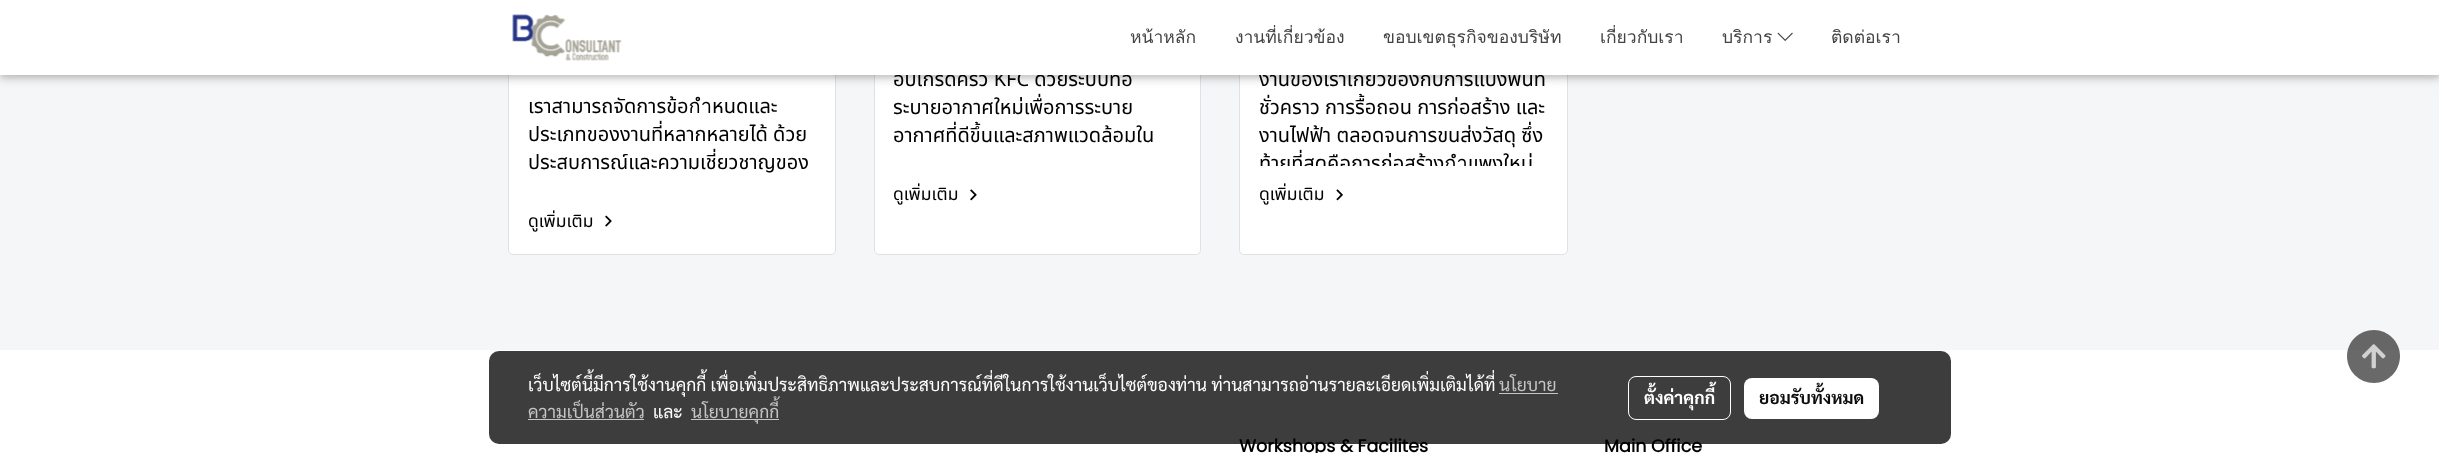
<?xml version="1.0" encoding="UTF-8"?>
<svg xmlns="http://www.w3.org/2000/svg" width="2439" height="453">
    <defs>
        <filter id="blur1" x="-50%" y="-200%" width="200%" height="500%"><feGaussianBlur stdDeviation="6"/></filter>
        <filter id="blur2" x="-50%" y="-200%" width="200%" height="500%"><feGaussianBlur stdDeviation="3"/></filter>
        <clipPath id="clip1"><rect x="528" y="205" width="288" height="30"/></clipPath>
        <clipPath id="clip2"><rect x="894" y="179" width="287" height="30"/></clipPath>
        <clipPath id="clip3"><rect x="1259" y="66" width="289" height="100"/></clipPath>
        <clipPath id="clip4"><rect x="1259" y="179" width="289" height="30"/></clipPath>
    </defs>
    <rect width="100%" height="100%" fill="#F5F6F7"/>
    <rect x="508.5" y="-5.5" width="327" height="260" rx="4.5" fill="#FFFFFF" stroke="#DEE2E6"/>
    <rect x="874.5" y="-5.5" width="326" height="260" rx="4.5" fill="#FFFFFF" stroke="#DEE2E6"/>
    <rect x="1239.5" y="-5.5" width="328" height="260" rx="4.5" fill="#FFFFFF" stroke="#DEE2E6"/>
    <rect x="0" y="3" width="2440" height="75" fill="#000000" fill-opacity="0.12" filter="url(#blur1)"/>
    <rect x="0" y="3" width="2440" height="75" fill="#000000" fill-opacity="0.16" filter="url(#blur2)"/>
    <text x="893" y="86" font-family="Noto Sans Thai" font-size="20" fill="#000000">อัปเกรดครัว KFC ด้วยระบบท่อ</text>
    <text x="1259" y="86" font-family="Noto Sans Thai" font-size="20" fill="#000000">งานของเราเกี่ยวข้องกับการแบ่งพื้นที่</text>
    <rect x="0" y="0" width="2439" height="75" fill="#FFFFFF"/>
    <image x="512" y="14" width="110" height="47" href="img_01.png"/>
    <text x="1130" y="43" font-family="Loma" font-size="17.5" fill="#434343">หน้าหลัก</text>
    <text x="1235" y="43" font-family="Loma" font-size="17.5" fill="#434343">งานที่เกี่ยวข้อง</text>
    <text x="1383" y="43" font-family="Loma" font-size="17.5" fill="#434343">ขอบเขตธุรกิจของบริษัท</text>
    <text x="1600" y="43" font-family="Loma" font-size="17.5" fill="#434343">เกี่ยวกับเรา</text>
    <text x="1722" y="43" font-family="Loma" font-size="17.5" fill="#434343">บริการ</text>
    <image x="1777" y="32" width="16" height="9" href="img_02.png"/>
    <text x="1831" y="43" font-family="Loma" font-size="17.5" fill="#434343">ติดต่อเรา</text>
    <text font-family="Noto Sans Thai" font-size="20" fill="#000000">
        <tspan x="528" y="113">เราสามารถจัดการข้อกำหนดและ</tspan>
        <tspan x="528" y="141">ประเภทของงานที่หลากหลายได้ ด้วย</tspan>
        <tspan x="528" y="169">ประสบการณ์และความเชี่ยวชาญของ</tspan>
    </text>
    <g clip-path="url(#clip1)">
        <text x="528" y="227" font-family="Noto Sans Thai" font-size="17.5" fill="#000000">ดูเพิ่มเติม</text>
    </g>
    <image x="605" y="215" width="7" height="12" href="img_03.png"/>
    <text font-family="Noto Sans Thai" font-size="20" fill="#000000">
        <tspan x="893" y="114">ระบายอากาศใหม่เพื่อการระบาย</tspan>
        <tspan x="893" y="142">อากาศที่ดีขึ้นและสภาพแวดล้อมใน</tspan>
    </text>
    <g clip-path="url(#clip2)">
        <text x="893" y="200" font-family="Noto Sans Thai" font-size="17.5" fill="#000000">ดูเพิ่มเติม</text>
    </g>
    <image x="970" y="189" width="7" height="12" href="img_04.png"/>
    <g clip-path="url(#clip3)">
        <text x="1259" y="114" font-family="Noto Sans Thai" font-size="20" fill="#000000">ชั่วคราว การรื้อถอน การก่อสร้าง และ</text>
    </g>
    <text x="1259" y="142" font-family="Noto Sans Thai" font-size="20" fill="#000000">งานไฟฟ้า ตลอดจนการขนส่งวัสดุ ซึ่ง</text>
    <g clip-path="url(#clip3)">
        <text x="1259" y="170" font-family="Noto Sans Thai" font-size="20" fill="#000000">ท้ายที่สุดคือการก่อสร้างกำแพงใหม่</text>
    </g>
    <g clip-path="url(#clip4)">
        <text x="1259" y="200" font-family="Noto Sans Thai" font-size="17.5" fill="#000000">ดูเพิ่มเติม</text>
    </g>
    <image x="1336" y="189" width="7" height="12" href="img_05.png"/>
    <rect x="0" y="350" width="2439" height="103" fill="#FFFFFF"/>
    <text x="1239" y="452" font-family="Poppins" font-size="17.5" font-weight="700" fill="#000000">Workshops &amp; Facilites</text>
    <text x="1604" y="452" font-family="Poppins" font-size="17.5" font-weight="700" fill="#000000">Main Office</text>
    <path d="M 2374 330 C 2359 330 2347 342 2347 356 C 2347 371 2359 383 2374 383 C 2388 383 2400 371 2400 356 C 2400 342 2388 330 2374 330 Z" fill="#2B2A2A" fill-opacity="0.7"/>
    <image x="2362" y="344" width="24" height="25" href="img_06.png"/>
    <rect x="489" y="351" width="1462" height="93" rx="10" fill="#000000" fill-opacity="0.76"/>
    <text x="528" y="391" font-family="Sarabun" font-size="17.5" fill="#FFFFFF">เว็บไซต์นี้มีการใช้งานคุกกี้ เพื่อเพิ่มประสิทธิภาพและประสบการณ์ที่ดีในการใช้งานเว็บไซต์ของท่าน ท่านสามารถอ่านรายละเอียดเพิ่มเติมได้ที่</text>
    <text x="1499" y="391" font-family="Sarabun" font-size="17.5" fill="#C5C5C5">นโยบาย</text>
    <rect x="1499" y="393" width="59" height="1" fill="#C5C5C5"/>
    <text x="528" y="418" font-family="Sarabun" font-size="17.5" fill="#C5C5C5">ความเป็นส่วนตัว</text>
    <rect x="528" y="419" width="116" height="1" fill="#C5C5C5"/>
    <text x="653" y="418" font-family="Sarabun" font-size="17.5" fill="#FFFFFF">และ</text>
    <rect x="691" y="419" width="88" height="1" fill="#C5C5C5"/>
    <text x="691" y="418" font-family="Sarabun" font-size="17.5" fill="#C5C5C5">นโยบายคุกกี้</text>
    <rect x="1628.5" y="376.5" width="102" height="43" rx="7.5" fill="none" stroke="#FFFFFF"/>
    <text x="1644" y="404" font-family="Sarabun" font-size="17.5" font-weight="700" fill="#FFFFFF">ตั้งค่าคุกกี้</text>
    <rect x="1744" y="378" width="135" height="41" rx="8" fill="#FFFFFF"/>
    <text x="1759" y="404" font-family="Sarabun" font-size="17.5" font-weight="700" fill="#0D0D0D">ยอมรับทั้งหมด</text>
</svg>
